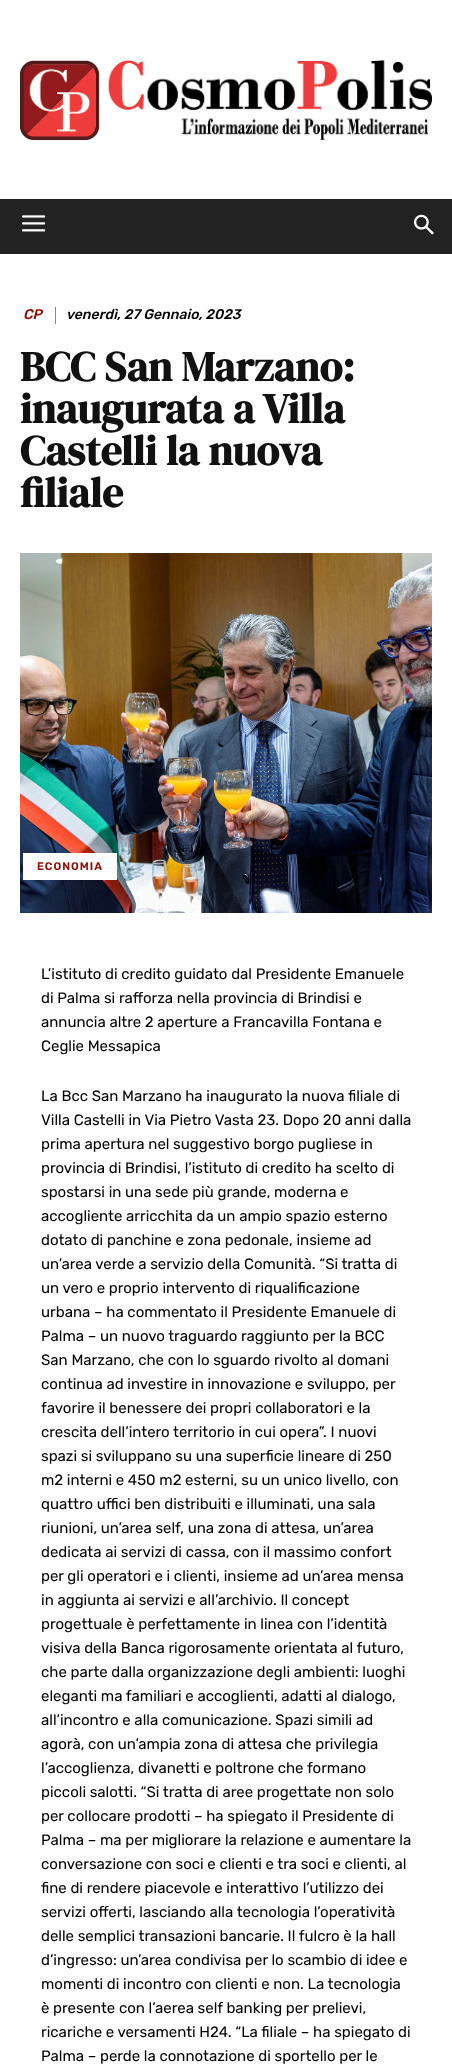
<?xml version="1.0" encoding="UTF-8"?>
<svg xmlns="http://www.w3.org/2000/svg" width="452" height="2065">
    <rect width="100%" height="100%" fill="#FFFFFF"/>
    <image x="20" y="60" width="412" height="80" href="img_01.png"/>
    <rect x="0" y="199" width="452" height="55" fill="#222222"/>
    <image x="22" y="215" width="24" height="17" href="img_02.png"/>
    <image x="414" y="214" width="20" height="21" href="img_03.png"/>
    <text x="23" y="319" font-family="Rubik" font-size="14" font-weight="500" font-style="italic" fill="#920B00">CP</text>
    <rect x="55" y="307" width="1" height="17" fill="#888888"/>
    <text x="66" y="319" font-family="Rubik" font-size="14" font-weight="500" font-style="italic" fill="#000000">venerdì, 27 Gennaio, 2023</text>
    <text font-family="DM Serif Display" font-size="42" font-weight="700" fill="#111111">
        <tspan x="20" y="381">BCC San Marzano:</tspan>
        <tspan x="20" y="423">inaugurata a Villa</tspan>
        <tspan x="20" y="465">Castelli la nuova</tspan>
        <tspan x="20" y="507">filiale</tspan>
    </text>
    <image x="20" y="553" width="412" height="360" href="img_04.png"/>
    <rect x="23" y="853" width="94" height="27" fill="#FFFFFF"/>
    <text x="37" y="870" font-family="Rubik" font-size="11" font-weight="600" letter-spacing="1" fill="#920B00">ECONOMIA</text>
    <text font-family="Rubik" font-size="15" fill="#000000">
        <tspan x="41" y="979">L’istituto di credito guidato dal Presidente Emanuele</tspan>
        <tspan x="41" y="1003">di Palma si rafforza nella provincia di Brindisi e</tspan>
        <tspan x="41" y="1027">annuncia altre 2 aperture a Francavilla Fontana e</tspan>
        <tspan x="41" y="1051">Ceglie Messapica</tspan>
    </text>
    <text font-family="Rubik" font-size="15" fill="#000000">
        <tspan x="41" y="1101">La Bcc San Marzano ha inaugurato la nuova filiale di</tspan>
        <tspan x="41" y="1125">Villa Castelli in Via Pietro Vasta 23. Dopo 20 anni dalla</tspan>
        <tspan x="41" y="1149">prima apertura nel suggestivo borgo pugliese in</tspan>
        <tspan x="41" y="1173">provincia di Brindisi, l’istituto di credito ha scelto di</tspan>
        <tspan x="41" y="1197">spostarsi in una sede più grande, moderna e</tspan>
        <tspan x="41" y="1221">accogliente arricchita da un ampio spazio esterno</tspan>
        <tspan x="41" y="1245">dotato di panchine e zona pedonale, insieme ad</tspan>
        <tspan x="41" y="1269">un’area verde a servizio della Comunità. “Si tratta di</tspan>
        <tspan x="41" y="1293">un vero e proprio intervento di riqualificazione</tspan>
        <tspan x="41" y="1317">urbana – ha commentato il Presidente Emanuele di</tspan>
        <tspan x="41" y="1341">Palma – un nuovo traguardo raggiunto per la BCC</tspan>
        <tspan x="41" y="1365">San Marzano, che con lo sguardo rivolto al domani</tspan>
        <tspan x="41" y="1389">continua ad investire in innovazione e sviluppo, per</tspan>
        <tspan x="41" y="1413">favorire il benessere dei propri collaboratori e la</tspan>
        <tspan x="41" y="1437">crescita dell’intero territorio in cui opera”. I nuovi</tspan>
        <tspan x="41" y="1461">spazi si sviluppano su una superficie lineare di 250</tspan>
        <tspan x="41" y="1485">m2 interni e 450 m2 esterni, su un unico livello, con</tspan>
        <tspan x="41" y="1509">quattro uffici ben distribuiti e illuminati, una sala</tspan>
        <tspan x="41" y="1533">riunioni, un’area self, una zona di attesa, un’area</tspan>
        <tspan x="41" y="1557">dedicata ai servizi di cassa, con il massimo confort</tspan>
        <tspan x="41" y="1581">per gli operatori e i clienti, insieme ad un’area mensa</tspan>
        <tspan x="41" y="1605">in aggiunta ai servizi e all’archivio. Il concept</tspan>
        <tspan x="41" y="1629">progettuale è perfettamente in linea con l’identità</tspan>
        <tspan x="41" y="1653">visiva della Banca rigorosamente orientata al futuro,</tspan>
        <tspan x="41" y="1677">che parte dalla organizzazione degli ambienti: luoghi</tspan>
        <tspan x="41" y="1701">eleganti ma familiari e accoglienti, adatti al dialogo,</tspan>
        <tspan x="41" y="1725">all’incontro e alla comunicazione. Spazi simili ad</tspan>
        <tspan x="41" y="1749">agorà, con un’ampia zona di attesa che privilegia</tspan>
        <tspan x="41" y="1773">l’accoglienza, divanetti e poltrone che formano</tspan>
        <tspan x="41" y="1797">piccoli salotti. “Si tratta di aree progettate non solo</tspan>
        <tspan x="41" y="1821">per collocare prodotti – ha spiegato il Presidente di</tspan>
        <tspan x="41" y="1845">Palma – ma per migliorare la relazione e aumentare la</tspan>
        <tspan x="41" y="1869">conversazione con soci e clienti e tra soci e clienti, al</tspan>
        <tspan x="41" y="1893">fine di rendere piacevole e interattivo l’utilizzo dei</tspan>
        <tspan x="41" y="1917">servizi offerti, lasciando alla tecnologia l’operatività</tspan>
        <tspan x="41" y="1941">delle semplici transazioni bancarie. Il fulcro è la hall</tspan>
        <tspan x="41" y="1965">d’ingresso: un’area condivisa per lo scambio di idee e</tspan>
        <tspan x="41" y="1989">momenti di incontro con clienti e non. La tecnologia</tspan>
        <tspan x="41" y="2013">è presente con l’aerea self banking per prelievi,</tspan>
        <tspan x="41" y="2037">ricariche e versamenti H24. “La filiale – ha spiegato di</tspan>
        <tspan x="41" y="2061">Palma – perde la connotazione di sportello per le</tspan>
    </text>
</svg>
